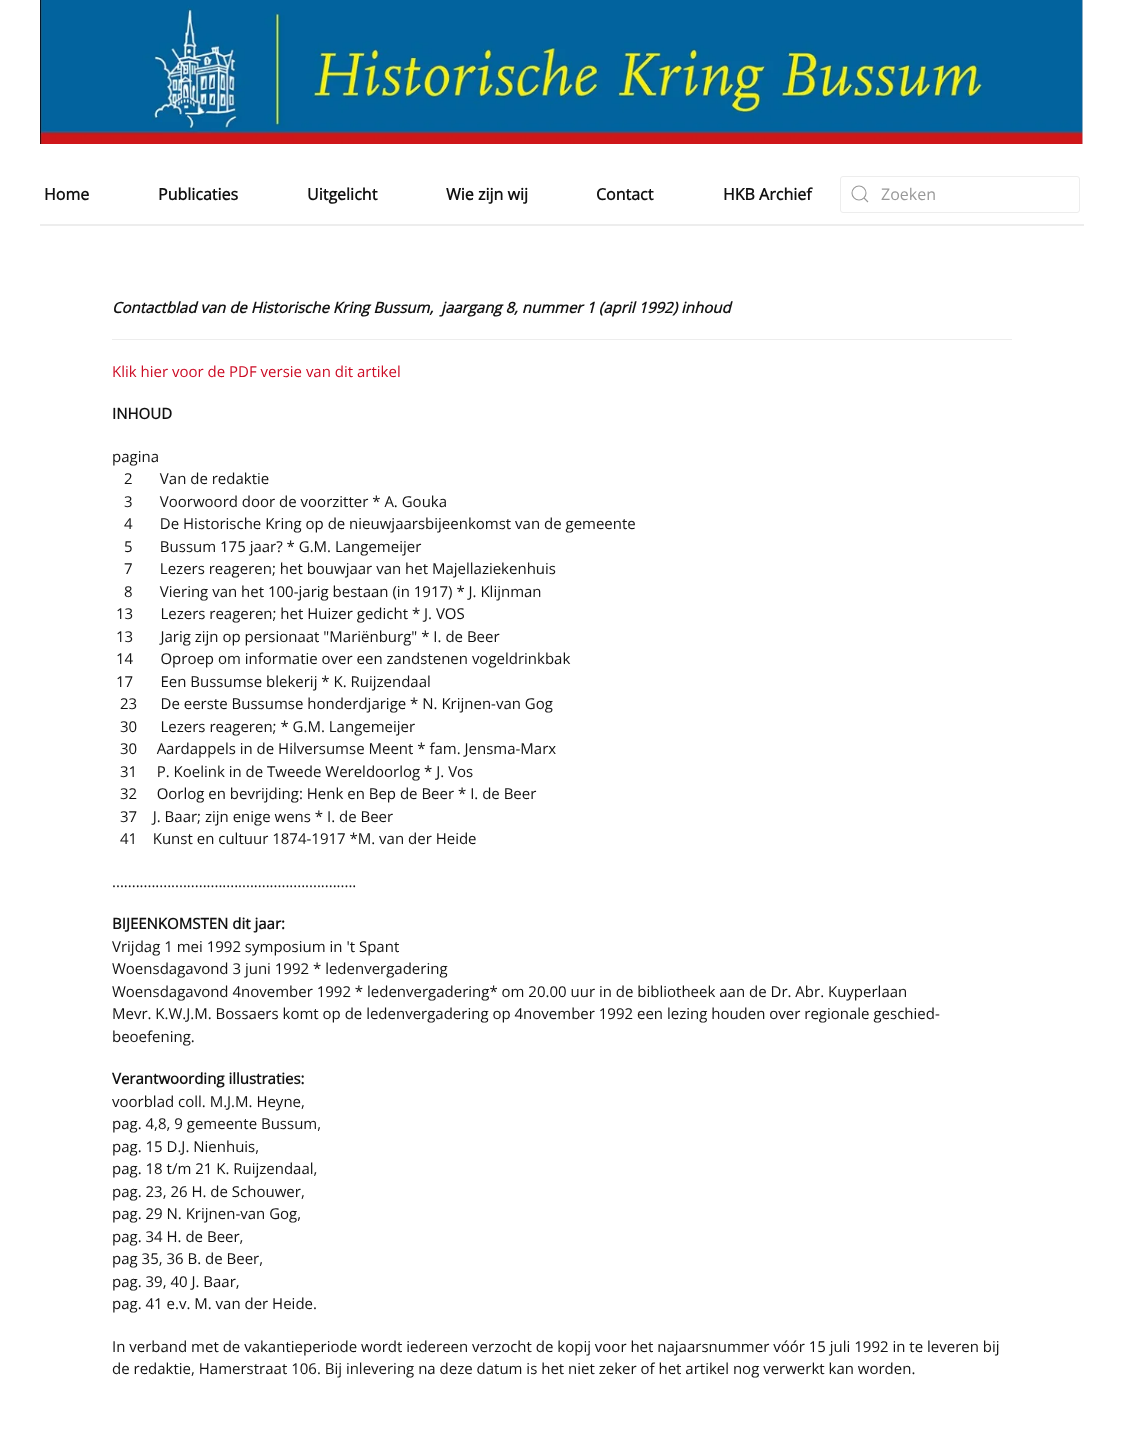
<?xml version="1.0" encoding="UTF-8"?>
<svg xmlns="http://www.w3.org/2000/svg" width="1124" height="1442">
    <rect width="100%" height="100%" fill="#FFFFFF"/>
    <rect x="40" y="224" width="1044" height="2" fill="#EDEDED"/>
    <image x="40" y="0" width="1043" height="144" href="img_01.png"/>
    <text x="44" y="200" font-family="Open Sans" font-size="16" font-weight="700" fill="#111111">Home</text>
    <text x="158" y="200" font-family="Open Sans" font-size="16" font-weight="700" fill="#111111">Publicaties</text>
    <text x="307" y="200" font-family="Open Sans" font-size="16" font-weight="700" fill="#111111">Uitgelicht</text>
    <text x="446" y="200" font-family="Open Sans" font-size="16" font-weight="700" fill="#111111">Wie zijn wij</text>
    <text x="596" y="200" font-family="Open Sans" font-size="16" font-weight="700" fill="#111111">Contact</text>
    <text x="723" y="200" font-family="Open Sans" font-size="16" font-weight="700" fill="#111111">HKB Archief</text>
    <rect x="840.5" y="176.5" width="239" height="36" rx="2.5" fill="none" stroke="#EDEDED"/>
    <circle cx="859" cy="193" r="7" fill="none" stroke="#999999" stroke-width="1.1"/>
    <path d="M 864 198 L 868 202 Z" fill="none" stroke="#999999" stroke-width="1.1"/>
    <text x="881" y="200" font-family="Open Sans" font-size="16" fill="#999999">Zoeken</text>
    <text x="112" y="313" font-family="Open Sans" font-size="15" font-weight="700" font-style="italic" fill="#111111" xml:space="preserve">Contactblad van de Historische Kring Bussum,  jaargang 8, nummer 1 (april 1992) inhoud</text>
    <rect x="112" y="339" width="900" height="1" fill="#EDEDED"/>
    <text x="112" y="377" font-family="Open Sans" font-size="15" fill="#CC0B24">Klik hier voor de PDF versie van dit artikel</text>
    <text x="112" y="419" font-family="Open Sans" font-size="15" font-weight="700" fill="#111111">INHOUD</text>
    <text x="112" y="462" font-family="Open Sans" font-size="15" fill="#111111">pagina</text>
    <text font-family="Open Sans" font-size="15" fill="#111111" xml:space="preserve"><tspan x="124" y="484">2       Van de redaktie</tspan><tspan x="124" y="507">3       Voorwoord door de voorzitter * A. Gouka</tspan><tspan x="124" y="529">4       De Historische Kring op de nieuwjaarsbijeenkomst van de gemeente</tspan><tspan x="124" y="552">5       Bussum 175 jaar? * G.M. Langemeijer</tspan><tspan x="124" y="574">7       Lezers reageren; het bouwjaar van het Majellaziekenhuis</tspan><tspan x="124" y="597">8       Viering van het 100-jarig bestaan (in 1917) * J. Klijnman</tspan></text>
    <text font-family="Open Sans" font-size="15" fill="#111111" xml:space="preserve"><tspan x="116" y="619">13       Lezers reageren; het Huizer gedicht * J. VOS</tspan><tspan x="116" y="642">13       Jarig zijn op persionaat "Mariënburg" * I. de Beer</tspan><tspan x="116" y="664">14       Oproep om informatie over een zandstenen vogeldrinkbak</tspan><tspan x="116" y="687">17       Een Bussumse blekerij * K. Ruijzendaal</tspan></text>
    <text font-family="Open Sans" font-size="15" fill="#111111" xml:space="preserve"><tspan x="120" y="709">23      De eerste Bussumse honderdjarige * N. Krijnen-van Gog</tspan><tspan x="120" y="732">30      Lezers reageren; * G.M. Langemeijer</tspan><tspan x="120" y="754">30     Aardappels in de Hilversumse Meent * fam. Jensma-Marx</tspan><tspan x="120" y="777">31     P. Koelink in de Tweede Wereldoorlog * J. Vos</tspan><tspan x="120" y="799">32     Oorlog en bevrijding: Henk en Bep de Beer * I. de Beer</tspan><tspan x="120" y="822">37    J. Baar; zijn enige wens * I. de Beer</tspan><tspan x="120" y="844">41    Kunst en cultuur 1874-1917 *M. van der Heide</tspan></text>
    <text x="112" y="887" font-family="Open Sans" font-size="15" fill="#111111">..............................................................</text>
    <text x="112" y="929" font-family="Open Sans" font-size="15" font-weight="700" fill="#111111">BIJEENKOMSTEN dit jaar:</text>
    <text font-family="Open Sans" font-size="15" fill="#111111">
        <tspan x="112" y="952">Vrijdag 1 mei 1992 symposium in 't Spant</tspan>
        <tspan x="112" y="974">Woensdagavond 3 juni 1992 * ledenvergadering</tspan>
        <tspan x="112" y="997">Woensdagavond 4november 1992 * ledenvergadering* om 20.00 uur in de bibliotheek aan de Dr. Abr. Kuyperlaan</tspan>
        <tspan x="112" y="1019">Mevr. K.W.J.M. Bossaers komt op de ledenvergadering op 4november 1992 een lezing houden over regionale geschied-</tspan>
        <tspan x="112" y="1042">beoefening.</tspan>
    </text>
    <text x="112" y="1084" font-family="Open Sans" font-size="15" font-weight="700" fill="#111111">Verantwoording illustraties:</text>
    <text font-family="Open Sans" font-size="15" fill="#111111">
        <tspan x="112" y="1107">voorblad coll. M.J.M. Heyne,</tspan>
        <tspan x="112" y="1129">pag. 4,8, 9 gemeente Bussum,</tspan>
        <tspan x="112" y="1152">pag. 15 D.J. Nienhuis,</tspan>
        <tspan x="112" y="1174">pag. 18 t/m 21 K. Ruijzendaal,</tspan>
        <tspan x="112" y="1197">pag. 23, 26 H. de Schouwer,</tspan>
        <tspan x="112" y="1219">pag. 29 N. Krijnen-van Gog,</tspan>
        <tspan x="112" y="1242">pag. 34 H. de Beer,</tspan>
        <tspan x="112" y="1264">pag 35, 36 B. de Beer,</tspan>
        <tspan x="112" y="1287">pag. 39, 40 J. Baar,</tspan>
        <tspan x="112" y="1309">pag. 41 e.v. M. van der Heide.</tspan>
    </text>
    <text font-family="Open Sans" font-size="15" fill="#111111">
        <tspan x="112" y="1352">In verband met de vakantieperiode wordt iedereen verzocht de kopij voor het najaarsnummer vóór 15 juli 1992 in te leveren bij</tspan>
        <tspan x="112" y="1374">de redaktie, Hamerstraat 106. Bij inlevering na deze datum is het niet zeker of het artikel nog verwerkt kan worden.</tspan>
    </text>
</svg>
